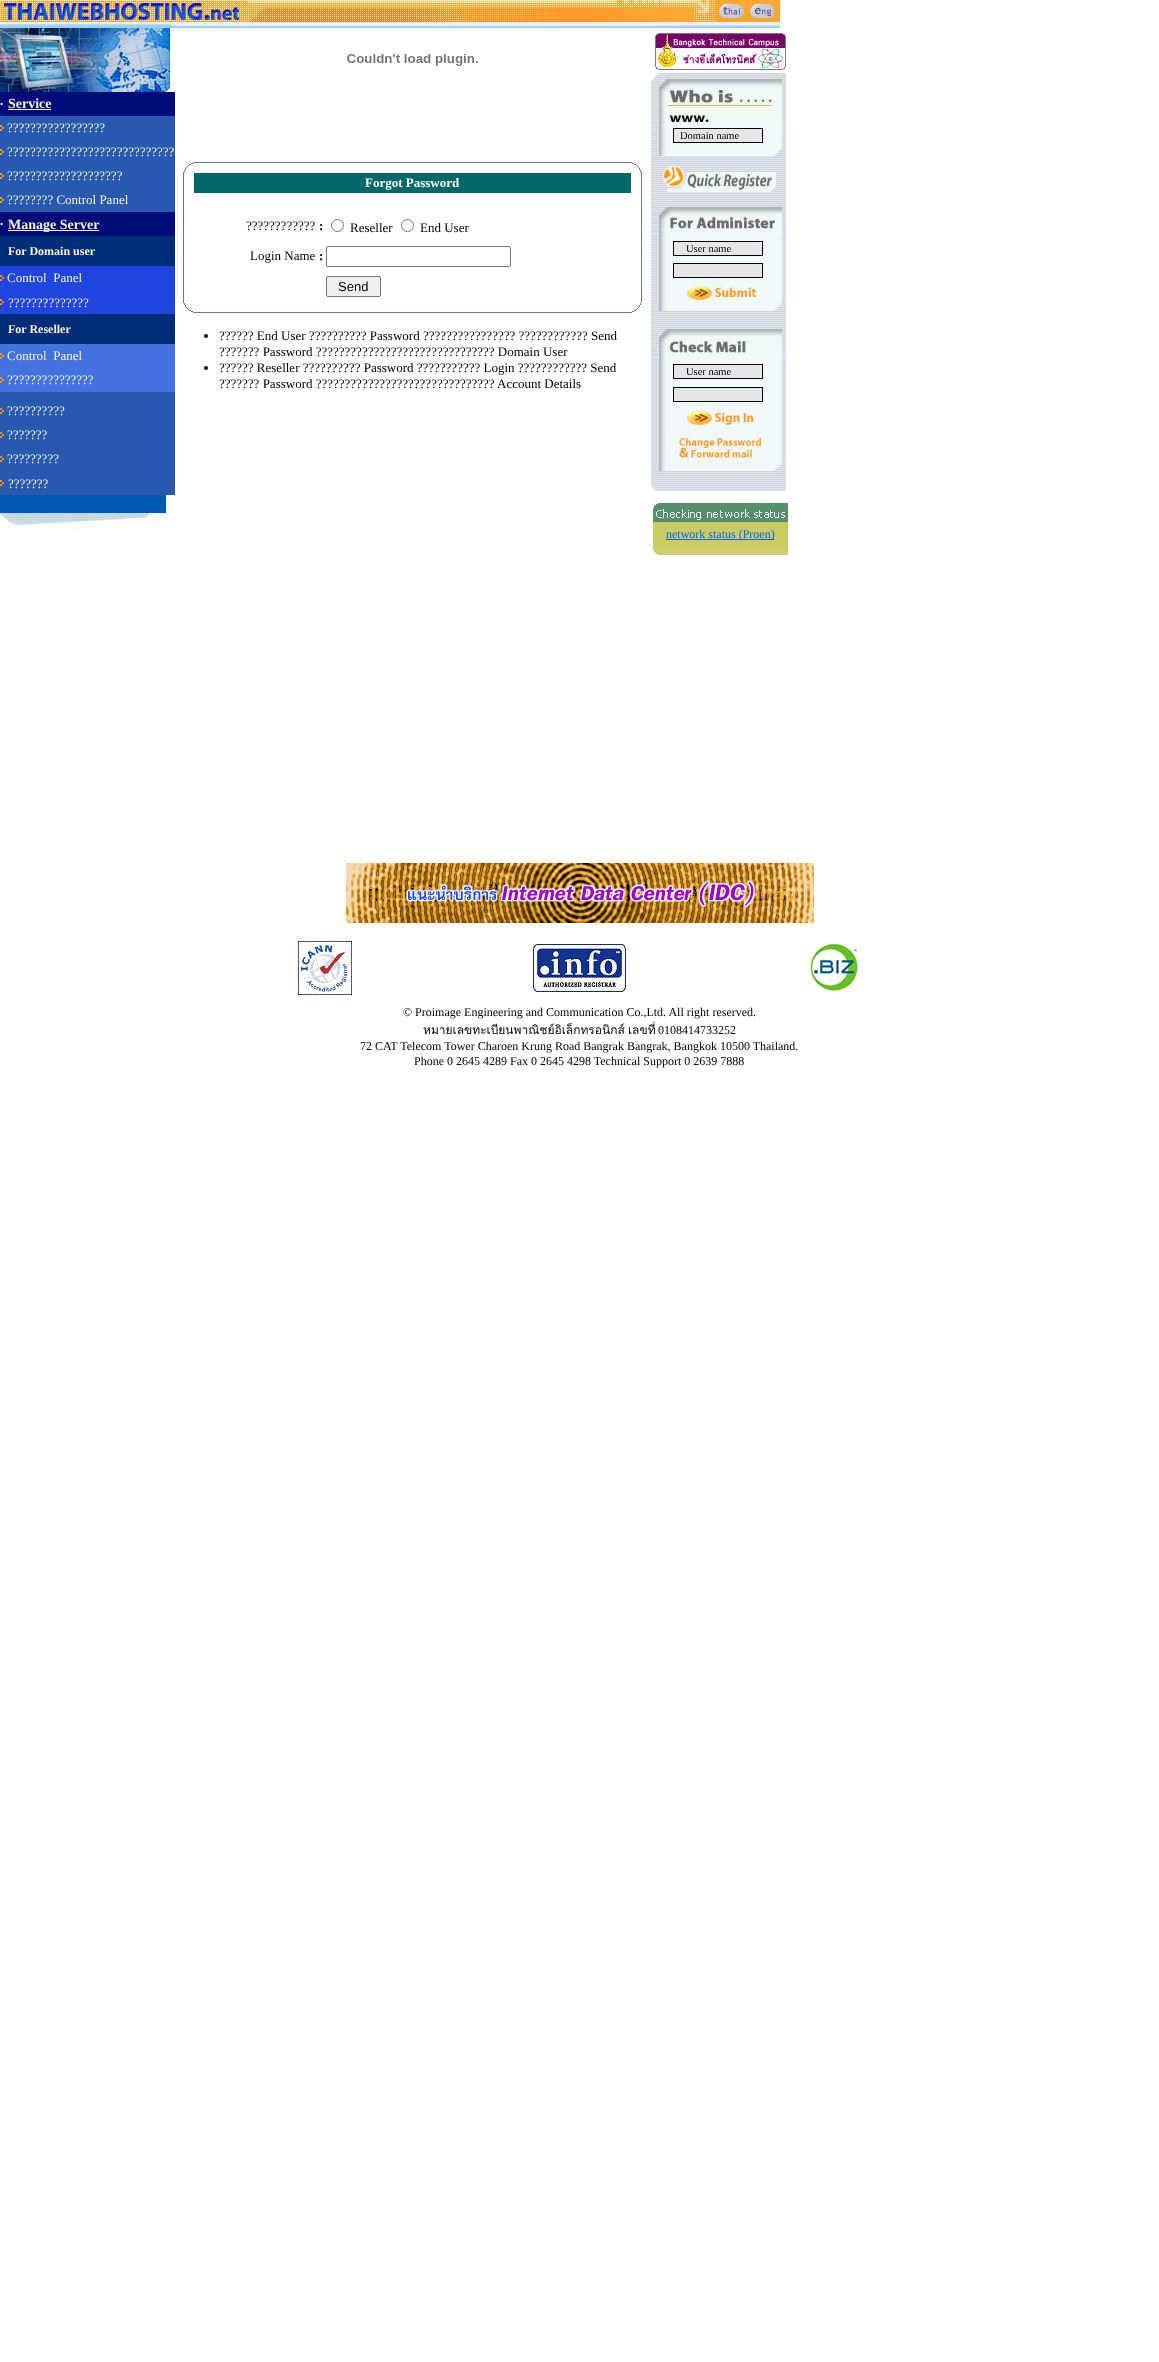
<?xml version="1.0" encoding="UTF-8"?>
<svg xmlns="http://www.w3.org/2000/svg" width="1159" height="2362">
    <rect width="100%" height="100%" fill="#FFFFFF"/>
    <image x="0" y="0" width="780" height="28" href="img_01.png"/>
    <image x="0" y="28" width="173" height="64" href="img_02.png"/>
    <rect x="0" y="92" width="175" height="24" fill="#000C77"/>
    <text x="0" y="107" font-family="Liberation Serif" font-size="9" fill="#F8F1D6">•</text>
    <text x="8" y="108" font-family="Liberation Serif" font-size="14" font-weight="700" fill="#F8F1D6">Service</text>
    <rect x="8" y="109" width="43" height="1" fill="#F8F1D6"/>
    <rect x="0" y="116" width="175" height="24" fill="#2759AE"/>
    <image x="0" y="125" width="4" height="6" href="img_03.png"/>
    <text x="7" y="132" font-family="Liberation Serif" font-size="13" fill="#F8F1D6">?????????????????</text>
    <rect x="0" y="140" width="175" height="24" fill="#2759AE"/>
    <image x="0" y="149" width="4" height="6" href="img_03.png"/>
    <text x="7" y="156" font-family="Liberation Serif" font-size="13" fill="#F8F1D6">?????????????????????????????</text>
    <rect x="0" y="164" width="175" height="24" fill="#2759AE"/>
    <image x="0" y="173" width="4" height="6" href="img_03.png"/>
    <text x="7" y="180" font-family="Liberation Serif" font-size="13" fill="#F8F1D6">????????????????????</text>
    <rect x="0" y="188" width="175" height="24" fill="#2759AE"/>
    <image x="0" y="197" width="4" height="6" href="img_03.png"/>
    <text x="7" y="204" font-family="Liberation Serif" font-size="13" fill="#F8F1D6">???????? Control Panel</text>
    <rect x="0" y="212" width="175" height="24" fill="#000C77"/>
    <text x="0" y="227" font-family="Liberation Serif" font-size="9" fill="#F8F1D6">•</text>
    <rect x="8" y="230" width="91" height="1" fill="#F8F1D6"/>
    <text x="8" y="229" font-family="Liberation Serif" font-size="14" font-weight="700" fill="#F8F1D6">Manage Server</text>
    <rect x="0" y="236" width="175" height="30" fill="#002D77"/>
    <text x="8" y="255" font-family="Liberation Serif" font-size="12" font-weight="700" fill="#F8F1D6">For Domain user</text>
    <rect x="0" y="266" width="175" height="24" fill="#1F45DC"/>
    <image x="0" y="275" width="4" height="6" href="img_04.png"/>
    <text x="7" y="282" font-family="Liberation Serif" font-size="13" fill="#F8F1D6" xml:space="preserve">Control  Panel</text>
    <rect x="0" y="290" width="175" height="24" fill="#1F45DC"/>
    <image x="0" y="299" width="4" height="6" href="img_04.png"/>
    <text x="8" y="307" font-family="Liberation Serif" font-size="13" fill="#F8F1D6">??????????????</text>
    <rect x="0" y="314" width="175" height="30" fill="#002D77"/>
    <text x="8" y="333" font-family="Liberation Serif" font-size="12" font-weight="700" fill="#F8F1D6">For Reseller</text>
    <rect x="0" y="344" width="175" height="24" fill="#4372E0"/>
    <image x="0" y="353" width="4" height="6" href="img_05.png"/>
    <text x="7" y="360" font-family="Liberation Serif" font-size="13" fill="#F8F1D6" xml:space="preserve">Control  Panel</text>
    <rect x="0" y="368" width="175" height="24" fill="#4372E0"/>
    <image x="0" y="377" width="4" height="6" href="img_05.png"/>
    <text x="7" y="384" font-family="Liberation Serif" font-size="13" fill="#F8F1D6">???????????????</text>
    <rect x="0" y="392" width="175" height="7" fill="#2759AE"/>
    <rect x="0" y="399" width="175" height="24" fill="#2759AE"/>
    <image x="0" y="408" width="4" height="6" href="img_03.png"/>
    <text x="7" y="415" font-family="Liberation Serif" font-size="13" fill="#F8F1D6">??????????</text>
    <rect x="0" y="423" width="175" height="24" fill="#2759AE"/>
    <image x="0" y="432" width="4" height="6" href="img_03.png"/>
    <text x="7" y="439" font-family="Liberation Serif" font-size="13" fill="#F8F1D6">???????</text>
    <rect x="0" y="447" width="175" height="24" fill="#2759AE"/>
    <image x="0" y="456" width="4" height="6" href="img_03.png"/>
    <text x="7" y="463" font-family="Liberation Serif" font-size="13" fill="#F8F1D6">?????????</text>
    <rect x="0" y="471" width="175" height="24" fill="#2759AE"/>
    <image x="0" y="480" width="4" height="6" href="img_03.png"/>
    <text x="8" y="488" font-family="Liberation Serif" font-size="13" fill="#F8F1D6">???????</text>
    <image x="0" y="495" width="168" height="35" href="img_06.png"/>
    <image x="347" y="54" width="131" height="12" href="img_07.png"/>
    <image x="180" y="159" width="14" height="14" href="img_08.png"/>
    <image x="194" y="160" width="437" height="6" href="img_09.png"/>
    <image x="631" y="159" width="14" height="14" href="img_10.png"/>
    <image x="181" y="173" width="5" height="128" href="img_11.png"/>
    <image x="181" y="217" width="5" height="38" href="img_12.png"/>
    <rect x="194" y="173" width="437" height="20" fill="#006666"/>
    <text x="365" y="187" font-family="Liberation Serif" font-size="13" font-weight="700" fill="#FFFFFF">Forgot Password</text>
    <text x="246" y="230" font-family="Liberation Serif" font-size="13" fill="#000000">????????????</text>
    <text x="319" y="230" font-family="Liberation Serif" font-size="13" font-weight="700" fill="#000000">:</text>
    <circle cx="337.5" cy="225.5" r="6" fill="none" stroke="#767676"/>
    <text x="350" y="232" font-family="Liberation Serif" font-size="13" fill="#000000">Reseller</text>
    <circle cx="407.5" cy="225.5" r="6" fill="none" stroke="#767676"/>
    <text x="420" y="232" font-family="Liberation Serif" font-size="13" fill="#000000">End User</text>
    <text x="250" y="260" font-family="Liberation Serif" font-size="13" fill="#000000">Login Name</text>
    <text x="319" y="260" font-family="Liberation Serif" font-size="13" font-weight="700" fill="#000000">:</text>
    <rect x="326.5" y="246.5" width="184" height="20" rx="1.5" fill="none" stroke="#767676"/>
    <rect x="326.5" y="276.5" width="54" height="20" rx="1.5" fill="#EFEFEF" stroke="#767676"/>
    <text x="338" y="291" font-family="Liberation Sans" font-size="13" fill="#000000">Send</text>
    <image x="638" y="173" width="7" height="128" href="img_13.png"/>
    <image x="638" y="217" width="7" height="38" href="img_14.png"/>
    <image x="180" y="301" width="14" height="14" href="img_15.png"/>
    <image x="194" y="303" width="437" height="12" href="img_16.png"/>
    <image x="631" y="301" width="13" height="14" href="img_17.png"/>
    <circle cx="206" cy="336" r="2" fill="#000000"/>
    <text font-family="Liberation Serif" font-size="13" fill="#000000">
        <tspan x="219" y="340">?????? End User ?????????? Password ???????????????? ???????????? Send</tspan>
        <tspan x="219" y="356">??????? Password ??????????????????????????????? Domain User</tspan>
    </text>
    <circle cx="206" cy="368" r="2" fill="#000000"/>
    <text font-family="Liberation Serif" font-size="13" fill="#000000">
        <tspan x="219" y="372">?????? Reseller ?????????? Password ??????????? Login ???????????? Send</tspan>
        <tspan x="219" y="388">??????? Password ???????????????????????????????</tspan>
    </text>
    <text x="497" y="388" font-family="Liberation Serif" font-size="13" fill="#000000">Account Details</text>
    <image x="653" y="31" width="135" height="40" href="img_18.png"/>
    <image x="647" y="73" width="139" height="50" href="img_19.png"/>
    <image x="647" y="123" width="21" height="69" href="img_20.png"/>
    <rect x="668" y="123" width="101" height="24" fill="#F0FAFB"/>
    <rect x="673.5" y="128.5" width="89" height="14" fill="#E6E6E6" stroke="#000000"/>
    <text x="680" y="139" font-family="Liberation Serif" font-size="10.5" fill="#000000">Domain name</text>
    <image x="668" y="147" width="101" height="25" href="img_21.png"/>
    <image x="668" y="172" width="101" height="20" href="img_22.png"/>
    <image x="769" y="123" width="17" height="69" href="img_23.png"/>
    <image x="647" y="192" width="139" height="43" href="img_24.png"/>
    <image x="647" y="235" width="21" height="73" href="img_25.png"/>
    <rect x="668" y="235" width="101" height="73" fill="#F0FAFB"/>
    <rect x="673.5" y="241.5" width="89" height="14" fill="#E6E6E6" stroke="#000000"/>
    <text x="686" y="252" font-family="Liberation Serif" font-size="10.5" fill="#000000">User name</text>
    <rect x="673.5" y="263.5" width="89" height="14" fill="#E6E6E6" stroke="#000000"/>
    <image x="684" y="281" width="72" height="24" href="img_26.png"/>
    <image x="769" y="235" width="17" height="73" href="img_27.png"/>
    <image x="647" y="308" width="139" height="51" href="img_28.png"/>
    <image x="647" y="359" width="21" height="106" href="img_29.png"/>
    <rect x="668" y="359" width="101" height="106" fill="#F0FAFB"/>
    <rect x="673.5" y="364.5" width="89" height="14" fill="#E6E6E6" stroke="#000000"/>
    <text x="686" y="375" font-family="Liberation Serif" font-size="10.5" fill="#000000">User name</text>
    <rect x="673.5" y="387.5" width="89" height="14" fill="#E6E6E6" stroke="#000000"/>
    <image x="684" y="406" width="72" height="24" href="img_30.png"/>
    <image x="676" y="432" width="88" height="32" href="img_31.png"/>
    <image x="769" y="359" width="17" height="106" href="img_32.png"/>
    <image x="647" y="465" width="139" height="27" href="img_33.png"/>
    <image x="653" y="503" width="135" height="19" href="img_34.png"/>
    <rect x="653" y="522" width="135" height="25" fill="#CCCC66"/>
    <rect x="666" y="539" width="108" height="1" fill="#0066FF"/>
    <text x="666" y="538" font-family="Liberation Serif" font-size="12" fill="#0066FF">network status (Proen)</text>
    <image x="653" y="547" width="135" height="8" href="img_35.png"/>
    <image x="346" y="863" width="468" height="60" href="img_36.png"/>
    <image x="298" y="941" width="54" height="54" href="img_37.png"/>
    <image x="533" y="944" width="93" height="48" href="img_38.png"/>
    <image x="810" y="944" width="48" height="47" href="img_39.png"/>
    <text x="403" y="1016" font-family="Liberation Serif" font-size="12" fill="#000000">© Proimage Engineering and Communication Co.,Ltd. All right reserved.</text>
    <text x="423" y="1034" font-family="Loma" font-size="12" fill="#000000">หมายเลขทะเบียนพาณิชย์อิเล็กทรอนิกส์</text>
    <text x="628" y="1034" font-family="Loma" font-size="12" fill="#000000">เลขที่</text>
    <text x="658" y="1034" font-family="Liberation Serif" font-size="12" fill="#000000">0108414733252</text>
    <text x="360" y="1050" font-family="Liberation Serif" font-size="12" fill="#000000">72 CAT Telecom Tower Charoen Krung Road Bangrak Bangrak, Bangkok 10500 Thailand.</text>
    <text x="414" y="1065" font-family="Liberation Serif" font-size="12" fill="#000000">Phone 0 2645 4289 Fax 0 2645 4298 Technical Support 0 2639 7888</text>
</svg>
